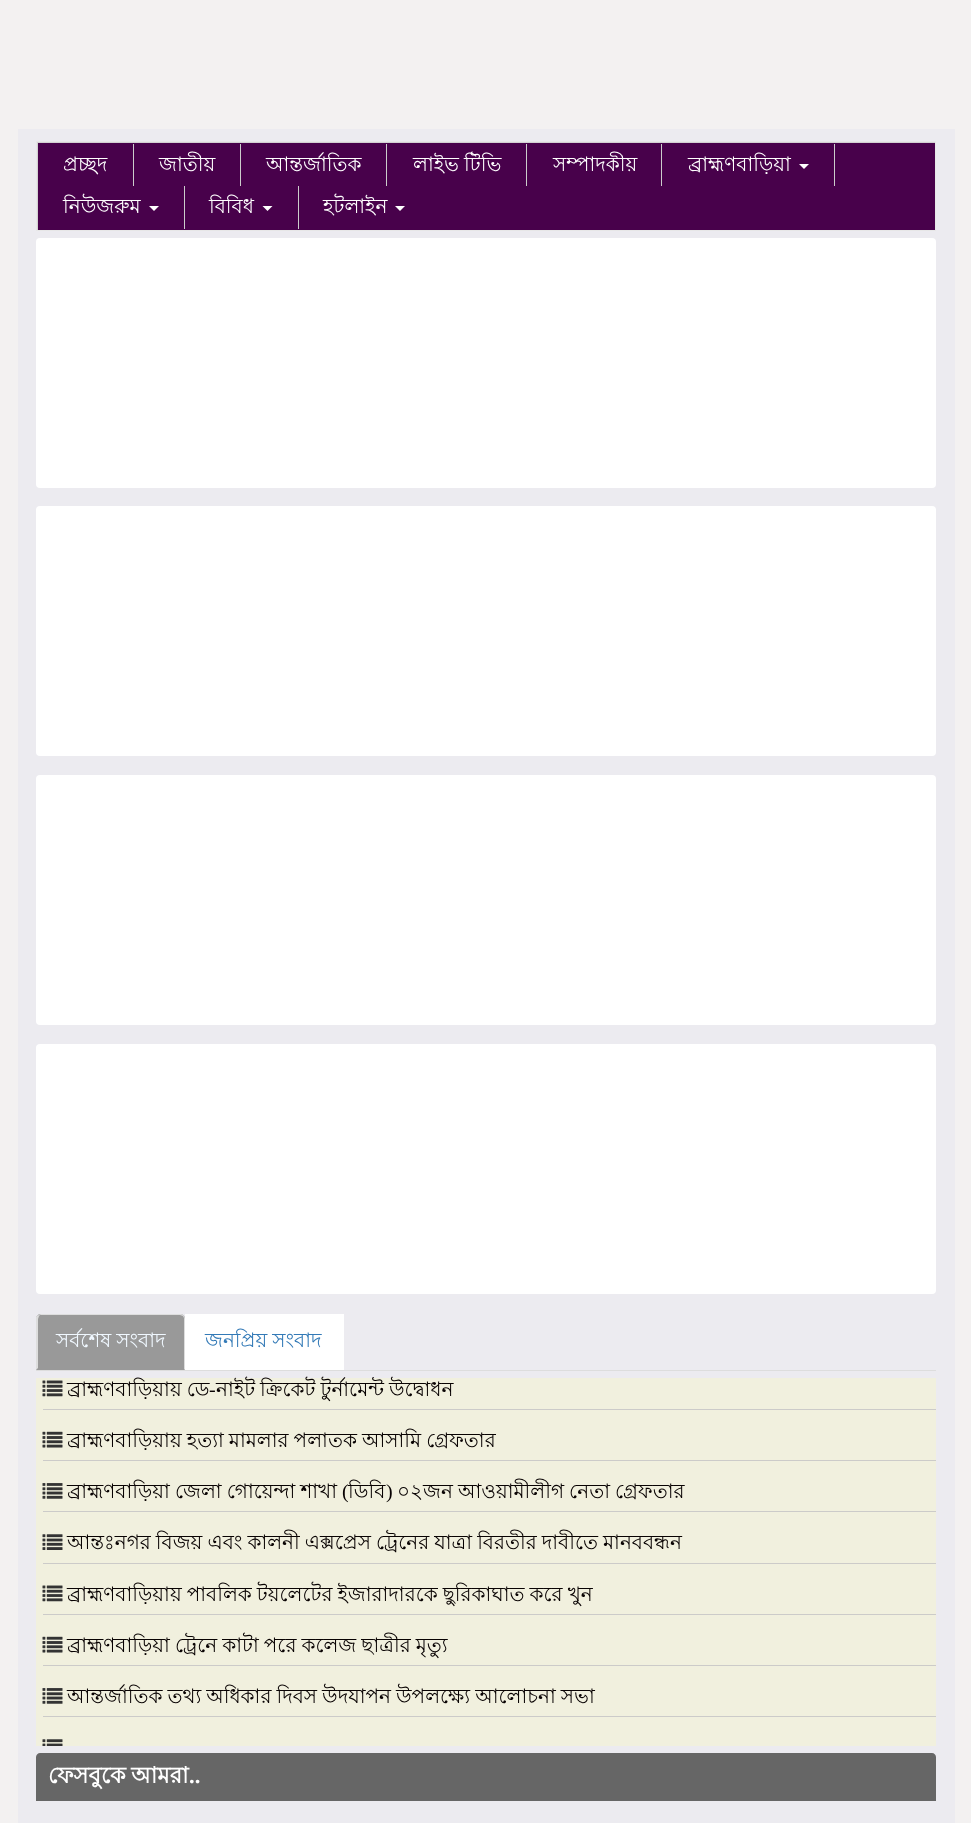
<?xml version="1.0" encoding="UTF-8"?>
<svg xmlns="http://www.w3.org/2000/svg" width="971" height="1823">
    <rect width="100%" height="100%" fill="#F3F1F1"/>
    <rect x="18" y="129" width="937" height="1694" fill="#ECEBF0"/>
    <rect x="36.5" y="141.5" width="899" height="89" fill="#D3D1D3" stroke="#E7E7E7"/>
    <rect x="38" y="143" width="897" height="87" fill="#48014B"/>
    <rect x="133" y="144" width="1" height="42" fill="#CCCCCC"/>
    <text x="63" y="171" font-family="Lohit Bengali" font-size="20" fill="#FFFFFF">প্রচ্ছদ</text>
    <rect x="240" y="144" width="1" height="42" fill="#CCCCCC"/>
    <text x="159" y="171" font-family="Lohit Bengali" font-size="20" fill="#FFFFFF">জাতীয়</text>
    <rect x="386" y="144" width="1" height="42" fill="#CCCCCC"/>
    <text x="266" y="171" font-family="Lohit Bengali" font-size="20" fill="#FFFFFF">আন্তর্জাতিক</text>
    <rect x="526" y="144" width="1" height="42" fill="#CCCCCC"/>
    <text x="413" y="171" word-spacing="-0.5" font-family="Lohit Bengali" font-size="20" fill="#FFFFFF">লাইভ টিভি</text>
    <rect x="661" y="144" width="1" height="42" fill="#CCCCCC"/>
    <text x="553" y="171" font-family="Lohit Bengali" font-size="20" fill="#FFFFFF">সম্পাদকীয়</text>
    <rect x="834" y="144" width="1" height="42" fill="#CCCCCC"/>
    <text x="688" y="171" font-family="Lohit Bengali" font-size="20" fill="#FFFFFF">ব্রাহ্মণবাড়িয়া</text>
    <path d="M 799 164 H 809 L 804 169 Z" fill="#FFFFFF"/>
    <rect x="184" y="186" width="1" height="43" fill="#CCCCCC"/>
    <text x="63" y="213" font-family="Lohit Bengali" font-size="20" fill="#FFFFFF">নিউজরুম</text>
    <path d="M 149 206 H 159 L 154 211 Z" fill="#FFFFFF"/>
    <rect x="298" y="186" width="1" height="43" fill="#CCCCCC"/>
    <text x="209" y="213" font-family="Lohit Bengali" font-size="20" fill="#FFFFFF">বিবিধ</text>
    <path d="M 262.5 206 H 272.5 L 267.5 211 Z" fill="#FFFFFF"/>
    <text x="323" y="213" font-family="Lohit Bengali" font-size="20" fill="#FFFFFF">হটলাইন</text>
    <path d="M 395 206 H 405 L 400 211 Z" fill="#FFFFFF"/>
    <rect x="36" y="238" width="900" height="250" rx="4" fill="#FFFFFF"/>
    <rect x="36" y="506" width="900" height="250" rx="4" fill="#FFFFFF"/>
    <rect x="36" y="775" width="900" height="250" rx="4" fill="#FFFFFF"/>
    <rect x="36" y="1044" width="900" height="250" rx="4" fill="#FFFFFF"/>
    <rect x="36" y="1370" width="900" height="1" fill="#DDDDDD"/>
    <path d="M 41 1314 H 180 C 183 1314 185 1316 185 1319 V 1370 H 36 V 1319 C 36 1316 38 1314 41 1314 Z" fill="#999999"/>
    <path d="M 41 1314 L 38 1315 L 39 1316 L 40 1315 H 180 L 183 1316 V 1315 C 183 1314 181 1314 180 1314 Z" fill="#DDDDDD"/>
    <path d="M 183 1315 C 184 1316 185 1317 185 1319 V 1370 L 184 1369 V 1318 L 183 1316 Z" fill="#DDDDDD"/>
    <path d="M 36 1370 L 38 1368 V 1319 L 39 1316 L 38 1315 L 36 1317 Z" fill="#DDDDDD"/>
    <text x="56" y="1347" word-spacing="-0.5" font-family="Lohit Bengali" font-size="20" fill="#F0F8FF">সর্বশেষ সংবাদ</text>
    <rect x="185" y="1314" width="159" height="56" fill="#FFFFFF"/>
    <text x="205" y="1347" word-spacing="-0.5" font-family="Lohit Bengali" font-size="20" fill="#337AB7">জনপ্রিয় সংবাদ</text>
    <rect x="36" y="1378" width="900" height="368" fill="#F1F0DE"/>
    <rect x="43" y="1409" width="893" height="1" fill="#CCCBC9"/>
    <image x="42" y="1380" width="21" height="17" href="img_01.png"/>
    <text x="67" y="1396" word-spacing="-0.5" font-family="Lohit Bengali" font-size="20" fill="#080202">ব্রাহ্মণবাড়িয়ায় ডে</text>
    <text x="209" y="1396" font-family="Liberation Serif" font-size="20" fill="#080202">-</text>
    <text x="216" y="1396" word-spacing="-0.5" font-family="Lohit Bengali" font-size="20" fill="#080202">নাইট ক্রিকেট টুর্নামেন্ট উদ্বোধন</text>
    <rect x="43" y="1460" width="893" height="1" fill="#CCCBC9"/>
    <image x="42" y="1431" width="21" height="17" href="img_02.png"/>
    <text x="67" y="1447" word-spacing="-0.5" font-family="Lohit Bengali" font-size="20" fill="#080202">ব্রাহ্মণবাড়িয়ায় হত্যা মামলার পলাতক আসামি গ্রেফতার</text>
    <rect x="43" y="1511" width="893" height="1" fill="#CCCBC9"/>
    <image x="42" y="1483" width="21" height="16" href="img_03.png"/>
    <text x="67" y="1498" word-spacing="-0.5" font-family="Lohit Bengali" font-size="20" fill="#080202">ব্রাহ্মণবাড়িয়া জেলা গোয়েন্দা শাখা</text>
    <text x="342" y="1498" font-family="Liberation Serif" font-size="20" fill="#080202">(</text>
    <text x="348" y="1498" font-family="Lohit Bengali" font-size="20" fill="#080202">ডিবি</text>
    <text x="386" y="1498" font-family="Liberation Serif" font-size="20" fill="#080202">)</text>
    <text x="397" y="1498" word-spacing="-0.5" font-family="Lohit Bengali" font-size="20" fill="#080202">০২জন আওয়ামীলীগ নেতা গ্রেফতার</text>
    <rect x="43" y="1563" width="893" height="1" fill="#CCCBC9"/>
    <image x="42" y="1534" width="21" height="16" href="img_04.png"/>
    <text x="67" y="1549" word-spacing="-0.5" font-family="Lohit Bengali" font-size="20" fill="#080202">আন্তঃনগর বিজয় এবং কালনী এক্সপ্রেস ট্রেনের যাত্রা বিরতীর দাবীতে মানববন্ধন</text>
    <rect x="43" y="1614" width="893" height="1" fill="#CCCBC9"/>
    <image x="42" y="1585" width="21" height="17" href="img_01.png"/>
    <text x="67" y="1601" word-spacing="-0.5" font-family="Lohit Bengali" font-size="20" fill="#080202">ব্রাহ্মণবাড়িয়ায় পাবলিক টয়লেটের ইজারাদারকে ছুরিকাঘাত করে খুন</text>
    <rect x="43" y="1665" width="893" height="1" fill="#CCCBC9"/>
    <image x="42" y="1636" width="21" height="17" href="img_02.png"/>
    <text x="67" y="1652" word-spacing="-0.5" font-family="Lohit Bengali" font-size="20" fill="#080202">ব্রাহ্মণবাড়িয়া ট্রেনে কাটা পরে কলেজ ছাত্রীর মৃত্যু</text>
    <rect x="43" y="1716" width="893" height="1" fill="#CCCBC9"/>
    <image x="42" y="1688" width="21" height="16" href="img_03.png"/>
    <text x="67" y="1703" word-spacing="-0.5" font-family="Lohit Bengali" font-size="20" fill="#080202">আন্তর্জাতিক তথ্য অধিকার দিবস উদযাপন উপলক্ষ্যে আলোচনা সভা</text>
    <image x="42" y="1739" width="21" height="7" href="img_05.png"/>
    <path d="M 40 1753 H 932 C 934 1753 936 1755 936 1757 V 1801 H 36 V 1757 C 36 1755 38 1753 40 1753 Z" fill="#666666"/>
    <text x="48" y="1783" word-spacing="-1" font-family="Lohit Bengali" font-size="22.5" font-weight="700" fill="#FFFFFF">ফেসবুকে আমরা</text>
    <text x="189" y="1783" font-family="Liberation Serif" font-size="22.5" font-weight="700" fill="#FFFFFF">..</text>
</svg>
